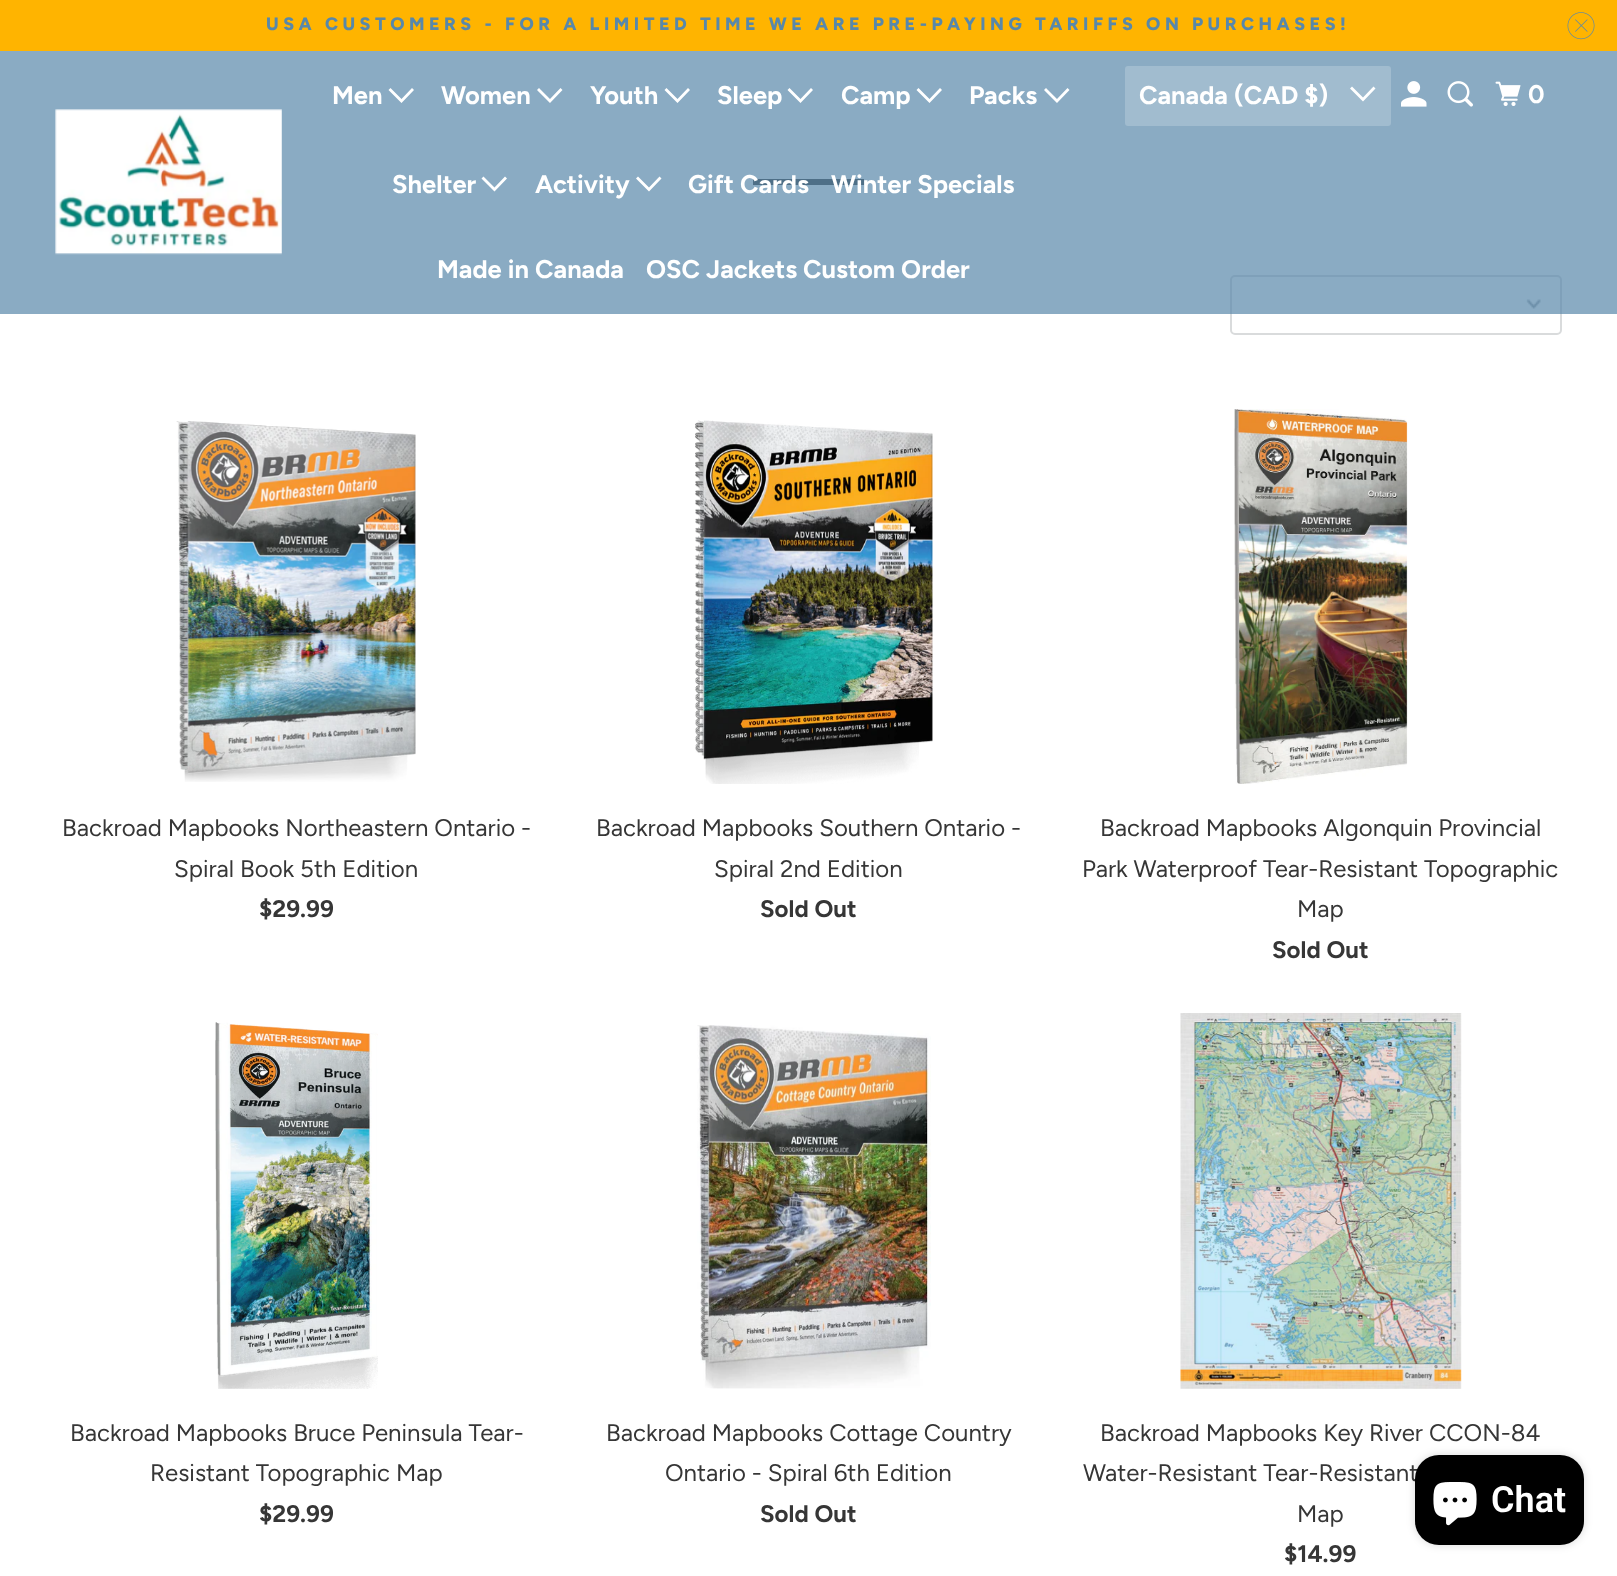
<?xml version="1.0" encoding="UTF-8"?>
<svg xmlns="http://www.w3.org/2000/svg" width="1617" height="1576">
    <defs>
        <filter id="blur1" x="-50%" y="-200%" width="200%" height="500%"><feGaussianBlur stdDeviation="4"/></filter>
    </defs>
    <rect width="100%" height="100%" fill="#FFFFFF"/>
    <rect x="0" y="0" width="1617" height="51" fill="#FFB400"/>
    <text x="266" y="30" font-family="Figtree" font-size="18" font-weight="800" letter-spacing="4.5" fill="#5888AA">USA CUSTOMERS - FOR A LIMITED TIME WE ARE PRE-PAYING TARIFFS ON PURCHASES!</text>
    <image x="1567" y="12" width="28" height="28" href="img_01.png"/>
    <rect x="753" y="179" width="111" height="6" fill="#363636"/>
    <image x="1526" y="299" width="15" height="10" href="img_06.png"/>
    <rect x="1231" y="276" width="330" height="58" rx="4" fill="none" stroke="#D9DBDC" stroke-width="2"/>
    <rect x="0" y="51" width="1617" height="263" fill="#5888AA" fill-opacity="0.7"/>
    <image x="55" y="109" width="227" height="146" href="img_02.png"/>
    <text x="332" y="104" font-family="Figtree" font-size="25.5" font-weight="700" fill="#FFFFFF">Men</text>
    <path d="M 395 96.5 L 388.5 90 L 390.5 88 L 401.5 99 L 412 88 L 414 90 L 401.5 103 Z" fill="#FFFFFF"/>
    <text x="441" y="104" font-family="Figtree" font-size="25.5" font-weight="700" fill="#FFFFFF">Women</text>
    <path d="M 543.5 96.5 L 537 90 L 539 88 L 550 99 L 560.5 88 L 562.5 90 L 550 103 Z" fill="#FFFFFF"/>
    <text x="590" y="104" font-family="Figtree" font-size="25.5" font-weight="700" fill="#FFFFFF">Youth</text>
    <path d="M 671 96.5 L 664.5 90 L 666.5 88 L 677.5 99 L 688 88 L 690 90 L 677.5 103 Z" fill="#FFFFFF"/>
    <text x="717" y="104" font-family="Figtree" font-size="25.5" font-weight="700" fill="#FFFFFF">Sleep</text>
    <path d="M 794 96.5 L 787.5 90 L 789.5 88 L 800.5 99 L 811 88 L 813 90 L 800.5 103 Z" fill="#FFFFFF"/>
    <text x="841" y="104" font-family="Figtree" font-size="25.5" font-weight="700" fill="#FFFFFF">Camp</text>
    <path d="M 923 96.5 L 916.5 90 L 918.5 88 L 929.5 99 L 940 88 L 942 90 L 929.5 103 Z" fill="#FFFFFF"/>
    <text x="969" y="104" font-family="Figtree" font-size="25.5" font-weight="700" fill="#FFFFFF">Packs</text>
    <path d="M 1050.5 96.5 L 1044 90 L 1046 88 L 1057 99 L 1067.5 88 L 1069.5 90 L 1057 103 Z" fill="#FFFFFF"/>
    <text x="392" y="193" font-family="Figtree" font-size="25.5" font-weight="700" fill="#FFFFFF">Shelter</text>
    <path d="M 488 185 L 481.5 178.5 L 483.5 176.5 L 494.5 187.5 L 505 176.5 L 507 178.5 L 494.5 191.5 Z" fill="#FFFFFF"/>
    <text x="535" y="193" font-family="Figtree" font-size="25.5" font-weight="700" fill="#FFFFFF">Activity</text>
    <path d="M 642.5 185 L 636 178.5 L 638 176.5 L 649 187.5 L 659.5 176.5 L 661.5 178.5 L 649 191.5 Z" fill="#FFFFFF"/>
    <text x="688" y="193" font-family="Figtree" font-size="25.5" font-weight="700" fill="#FFFFFF">Gift Cards</text>
    <text x="831" y="193" font-family="Figtree" font-size="25.5" font-weight="700" fill="#FFFFFF">Winter Specials</text>
    <text x="437" y="278" font-family="Figtree" font-size="25.5" font-weight="700" fill="#FFFFFF">Made in Canada</text>
    <text x="646" y="278" font-family="Figtree" font-size="25.5" font-weight="700" fill="#FFFFFF">OSC Jackets Custom Order</text>
    <rect x="1125" y="66" width="266" height="60" rx="3" fill="#A1BCCF"/>
    <text x="1139" y="104" font-family="Figtree" font-size="25.5" font-weight="700" fill="#FFFFFF">Canada (CAD $)</text>
    <path d="M 1356.5 95 L 1350 88.5 L 1352 86.5 L 1363 97.5 L 1373.5 86.5 L 1375.5 88.5 L 1363 101.5 Z" fill="#FFFFFF"/>
    <image x="1401" y="81" width="26" height="26" href="img_03.png"/>
    <image x="1447" y="81" width="26" height="26" href="img_04.png"/>
    <image x="1495" y="81" width="26" height="25" href="img_05.png"/>
    <text x="1528" y="103" font-family="Figtree" font-size="25.5" font-weight="700" fill="#FFFFFF">0</text>
    <image x="176" y="421" width="240" height="361" href="img_07.png"/>
    <text x="62" y="836" font-family="Figtree" font-size="24" fill="#363636">Backroad Mapbooks Northeastern Ontario -</text>
    <text x="174" y="877" font-family="Figtree" font-size="24" fill="#363636">Spiral Book 5th Edition</text>
    <text x="259" y="917" font-family="Figtree" font-size="24" font-weight="700" fill="#363636">$29.99</text>
    <image x="695" y="420" width="238" height="364" href="img_08.png"/>
    <text x="596" y="836" font-family="Figtree" font-size="24" fill="#363636">Backroad Mapbooks Southern Ontario -</text>
    <text x="714" y="877" font-family="Figtree" font-size="24" fill="#363636">Spiral 2nd Edition</text>
    <text x="760" y="917" font-family="Figtree" font-size="24" font-weight="700" fill="#363636">Sold Out</text>
    <image x="1234" y="409" width="174" height="375" href="img_09.png"/>
    <text x="1100" y="836" font-family="Figtree" font-size="24" fill="#363636">Backroad Mapbooks Algonquin Provincial</text>
    <text x="1082" y="877" font-family="Figtree" font-size="24" fill="#363636">Park Waterproof Tear-Resistant Topographic</text>
    <text x="1297" y="917" font-family="Figtree" font-size="24" fill="#363636">Map</text>
    <text x="1272" y="958" font-family="Figtree" font-size="24" font-weight="700" fill="#363636">Sold Out</text>
    <image x="215" y="1022" width="163" height="367" href="img_10.png"/>
    <text x="70" y="1441" font-family="Figtree" font-size="24" fill="#363636">Backroad Mapbooks Bruce Peninsula Tear-</text>
    <text x="150" y="1481" font-family="Figtree" font-size="24" fill="#363636">Resistant Topographic Map</text>
    <text x="259" y="1522" font-family="Figtree" font-size="24" font-weight="700" fill="#363636">$29.99</text>
    <image x="697" y="1025" width="234" height="364" href="img_11.png"/>
    <text x="606" y="1441" font-family="Figtree" font-size="24" fill="#363636">Backroad Mapbooks Cottage Country</text>
    <text x="665" y="1481" font-family="Figtree" font-size="24" fill="#363636">Ontario - Spiral 6th Edition</text>
    <text x="760" y="1522" font-family="Figtree" font-size="24" font-weight="700" fill="#363636">Sold Out</text>
    <image x="1180" y="1013" width="282" height="376" href="img_12.png"/>
    <text x="1100" y="1441" font-family="Figtree" font-size="24" fill="#363636">Backroad Mapbooks Key River CCON-84</text>
    <text x="1083" y="1481" font-family="Figtree" font-size="24" fill="#363636">Water-Resistant Tear-Resistant</text>
    <text x="1297" y="1522" font-family="Figtree" font-size="24" fill="#363636">Map</text>
    <text x="1284" y="1562" font-family="Figtree" font-size="24" font-weight="700" fill="#363636">$14.99</text>
    <rect x="1415" y="1455" width="169" height="90" rx="24" fill="#000000" fill-opacity="0.15" filter="url(#blur1)"/>
    <rect x="1415" y="1455" width="169" height="90" rx="24" fill="#000000"/>
    <image x="1433" y="1482" width="44" height="44" href="img_13.png"/>
    <text x="1491" y="1512" font-family="Roboto" font-size="36" font-weight="600" fill="#FFFFFF">Chat</text>
</svg>
